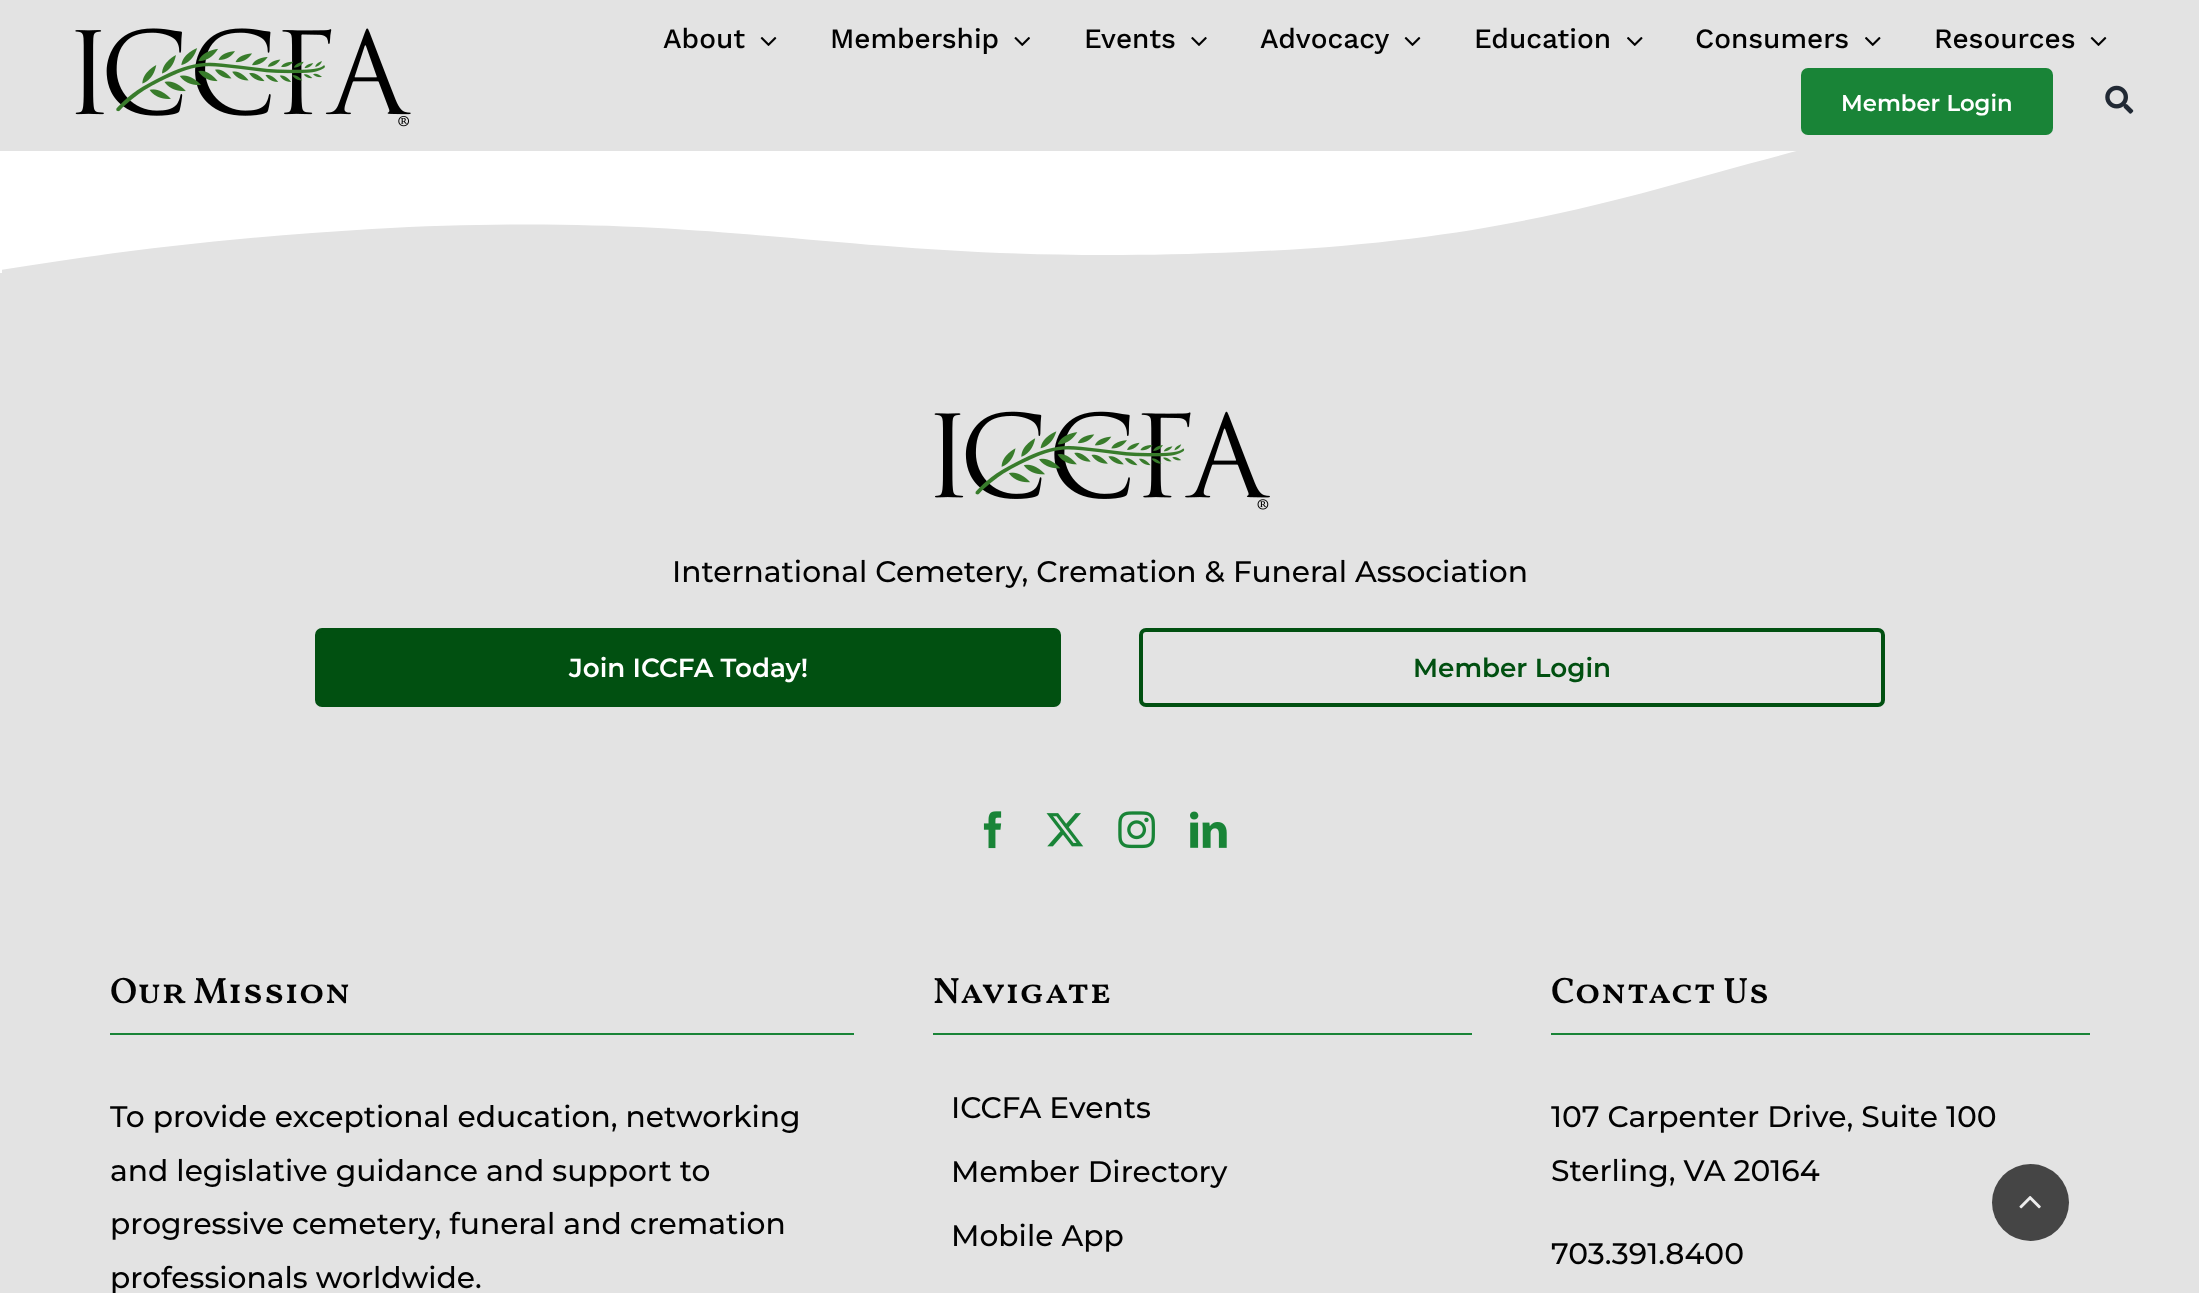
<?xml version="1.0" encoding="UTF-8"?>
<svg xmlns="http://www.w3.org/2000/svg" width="2199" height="1293">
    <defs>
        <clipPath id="clip1"><rect x="2" y="98" width="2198" height="175"/></clipPath>
    </defs>
    <rect width="100%" height="100%" fill="#FFFFFF"/>
    <g clip-path="url(#clip1)">
        <path d="M 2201 98 L 2175 99 C 1732 115 1686 234 1242 252 C 845 269 756 208 372 229 C 235 237 110 252 1 270 V 273 H 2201 Z" fill="#E3E3E3"/>
    </g>
    <rect x="0" y="0" width="2199" height="151" fill="#E3E3E3"/>
    <image x="75" y="28" width="336" height="99" href="img_01.png"/>
    <text x="663" y="48" font-family="Work Sans" font-size="28" font-weight="500" fill="#020202">About</text>
    <image x="760" y="37" width="17" height="9" href="img_02.png"/>
    <text x="830" y="48" font-family="Work Sans" font-size="28" font-weight="500" fill="#020202">Membership</text>
    <image x="1014" y="37" width="16" height="9" href="img_03.png"/>
    <text x="1084" y="48" font-family="Work Sans" font-size="28" font-weight="500" fill="#020202">Events</text>
    <image x="1191" y="37" width="16" height="9" href="img_04.png"/>
    <text x="1260" y="48" font-family="Work Sans" font-size="28" font-weight="500" fill="#020202">Advocacy</text>
    <image x="1404" y="37" width="17" height="9" href="img_02.png"/>
    <text x="1474" y="48" font-family="Work Sans" font-size="28" font-weight="500" fill="#020202">Education</text>
    <image x="1627" y="37" width="16" height="9" href="img_05.png"/>
    <text x="1695" y="48" font-family="Work Sans" font-size="28" font-weight="500" fill="#020202">Consumers</text>
    <image x="1865" y="37" width="16" height="9" href="img_05.png"/>
    <text x="1934" y="48" font-family="Work Sans" font-size="28" font-weight="500" fill="#020202">Resources</text>
    <image x="2090" y="37" width="17" height="9" href="img_02.png"/>
    <rect x="1801" y="68" width="252" height="67" rx="7" fill="#198437"/>
    <text x="1841" y="111" font-family="Montserrat" font-size="22.75" font-weight="600" fill="#FFFFFF">Member Login</text>
    <image x="2105" y="85" width="29" height="29" href="img_06.png"/>
    <rect x="0" y="273" width="2199" height="1020" fill="#E3E3E3"/>
    <image x="934" y="411" width="336" height="99" href="img_07.png"/>
    <text x="672" y="582" font-family="Montserrat" font-size="29.75" font-weight="500" fill="#020202">International Cemetery, Cremation &amp; Funeral Association</text>
    <rect x="317" y="630" width="742" height="75" rx="5" fill="#015011" stroke="#015011" stroke-width="4"/>
    <text x="569" y="677" font-family="Montserrat" font-size="26.25" font-weight="600" fill="#FFFFFF">Join ICCFA Today!</text>
    <rect x="1141" y="630" width="742" height="75" rx="5" fill="none" stroke="#015011" stroke-width="4"/>
    <text x="1413" y="677" font-family="Montserrat" font-size="26.25" font-weight="600" fill="#015011">Member Login</text>
    <image x="983" y="811" width="19" height="38" href="img_08.png"/>
    <image x="1046" y="813" width="38" height="34" href="img_09.png"/>
    <image x="1118" y="811" width="37" height="38" href="img_10.png"/>
    <image x="1190" y="811" width="37" height="37" href="img_11.png"/>
    <rect x="110" y="1033" width="744" height="2" fill="#198437"/>
    <text x="110" y="1003" font-family="Vollkorn SC" font-size="36.75" font-weight="600" fill="#020202">Our Mission</text>
    <text font-family="Montserrat" font-size="29.75" font-weight="500" fill="#020202">
        <tspan x="110" y="1127">To provide exceptional education, networking</tspan>
        <tspan x="110" y="1181">and legislative guidance and support to</tspan>
        <tspan x="110" y="1234">progressive cemetery, funeral and cremation</tspan>
        <tspan x="110" y="1288">professionals worldwide.</tspan>
    </text>
    <rect x="933" y="1033" width="539" height="2" fill="#198437"/>
    <text x="933" y="1003" font-family="Vollkorn SC" font-size="36.75" font-weight="600" fill="#020202">Navigate</text>
    <text x="951" y="1118" font-family="Montserrat" font-size="29.75" font-weight="500" fill="#020202">ICCFA Events</text>
    <text x="951" y="1182" font-family="Montserrat" font-size="29.75" font-weight="500" fill="#020202">Member Directory</text>
    <text x="951" y="1246" font-family="Montserrat" font-size="29.75" font-weight="500" fill="#020202">Mobile App</text>
    <rect x="1551" y="1033" width="539" height="2" fill="#198437"/>
    <text x="1551" y="1003" font-family="Vollkorn SC" font-size="36.75" font-weight="600" fill="#020202">Contact Us</text>
    <text font-family="Montserrat" font-size="29.75" font-weight="500" fill="#020202">
        <tspan x="1551" y="1127">107 Carpenter Drive, Suite 100</tspan>
        <tspan x="1551" y="1181">Sterling, VA 20164</tspan>
    </text>
    <text x="1551" y="1264" font-family="Montserrat" font-size="29.75" font-weight="500" fill="#020202">703.391.8400</text>
    <circle cx="2030.5" cy="1202.5" r="38.5" fill="#454545"/>
    <image x="2019" y="1196" width="22" height="13" href="img_12.png"/>
</svg>
